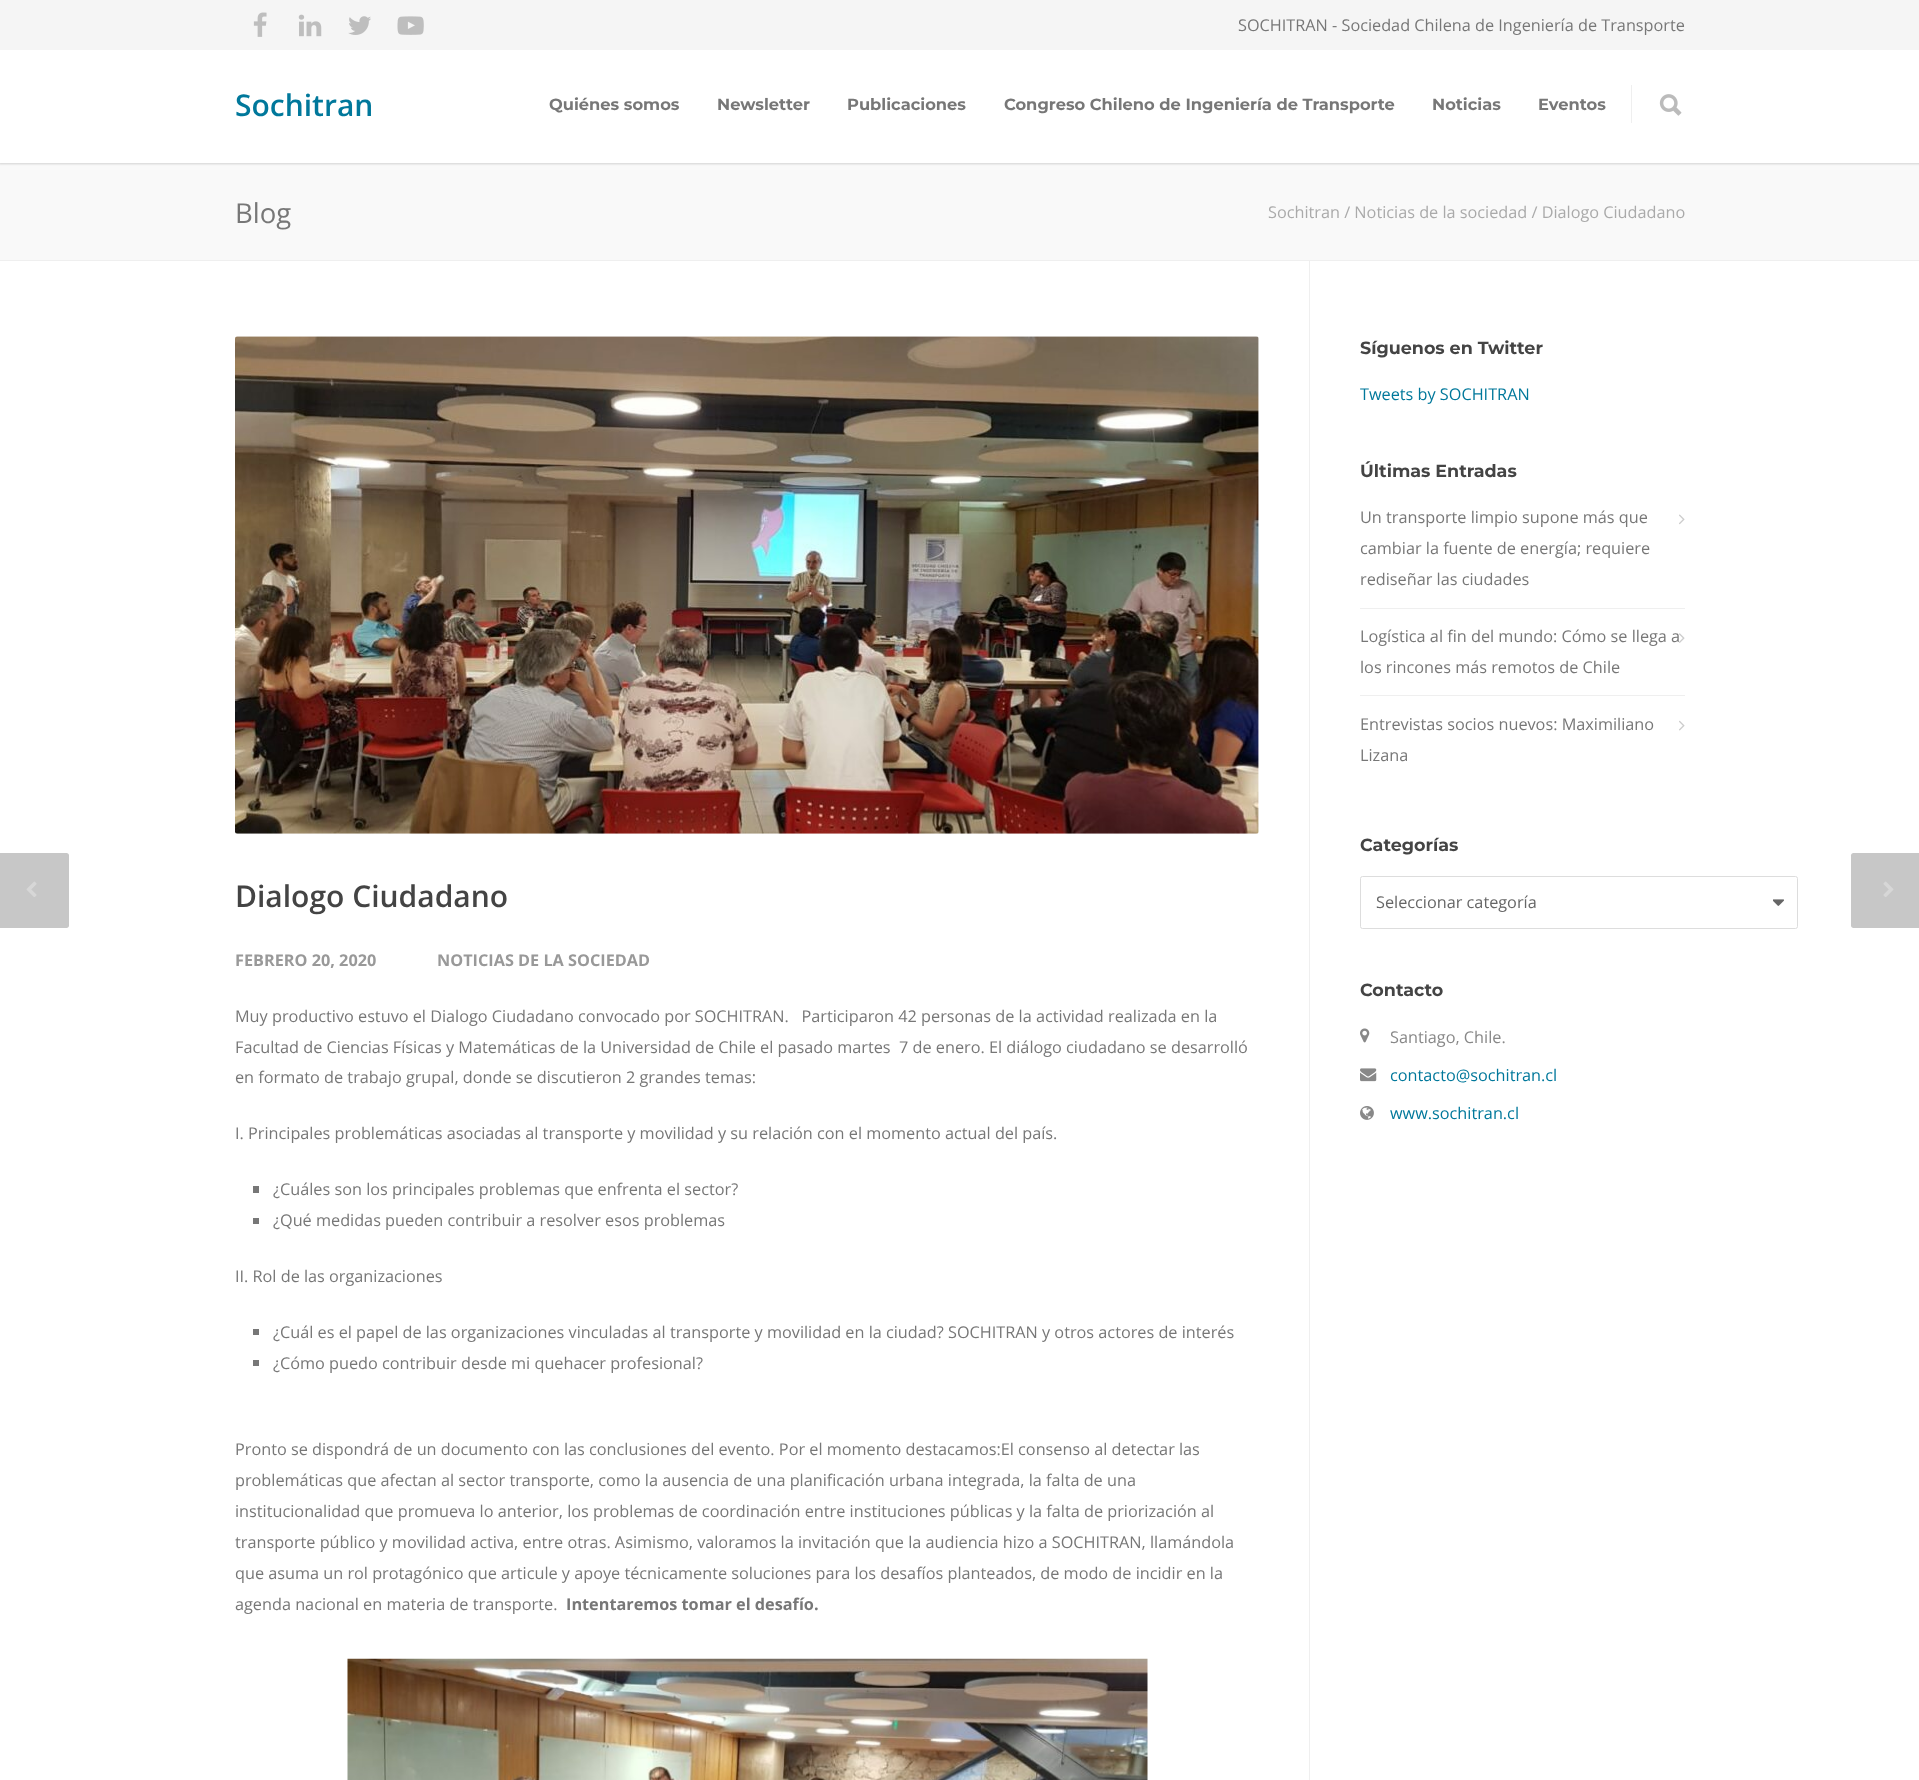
<?xml version="1.0" encoding="UTF-8"?>
<svg xmlns="http://www.w3.org/2000/svg" width="1919" height="1780">
    <defs>
        <filter id="blur1" x="-50%" y="-200%" width="200%" height="500%"><feGaussianBlur stdDeviation="1"/></filter>
    </defs>
    <rect width="100%" height="100%" fill="#FFFFFF"/>
    <rect x="0" y="163" width="1919" height="97" fill="#F9F9F9"/>
    <rect x="-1" y="49" width="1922" height="115" fill="#000000" fill-opacity="0.16" filter="url(#blur1)"/>
    <rect x="0" y="0" width="1919" height="50" fill="#F5F5F5"/>
    <image x="253" y="12" width="14" height="25" href="img_01.png"/>
    <image x="298" y="14" width="24" height="23" href="img_02.png"/>
    <image x="348" y="16" width="23" height="19" href="img_03.png"/>
    <image x="397" y="16" width="27" height="19" href="img_04.png"/>
    <text x="1238" y="31" font-family="Open Sans" font-size="16.25" fill="#777777">SOCHITRAN - Sociedad Chilena de Ingeniería de Transporte</text>
    <rect x="0" y="50" width="1919" height="113" fill="#FFFFFF"/>
    <text x="235" y="116" font-family="Open Sans" font-size="30" font-weight="600" fill="#00789B">Sochitran</text>
    <text x="549" y="110" font-family="Montserrat" font-size="16.25" font-weight="700" fill="#777777">Quiénes somos</text>
    <text x="717" y="110" font-family="Montserrat" font-size="16.25" font-weight="700" fill="#777777">Newsletter</text>
    <text x="847" y="110" font-family="Montserrat" font-size="16.25" font-weight="700" fill="#777777">Publicaciones</text>
    <text x="1004" y="110" font-family="Montserrat" font-size="16.25" font-weight="700" fill="#777777">Congreso Chileno de Ingeniería de Transporte</text>
    <text x="1432" y="110" font-family="Montserrat" font-size="16.25" font-weight="700" fill="#777777">Noticias</text>
    <text x="1538" y="110" font-family="Montserrat" font-size="16.25" font-weight="700" fill="#777777">Eventos</text>
    <rect x="1631" y="85" width="1" height="38" fill="#EFEFEF"/>
    <image x="1659" y="94" width="23" height="22" href="img_05.png"/>
    <rect x="0" y="260" width="1919" height="1" fill="#EFEFEF"/>
    <text x="235" y="223" font-family="Open Sans" font-size="27.5" fill="#777777">Blog</text>
    <text x="1268" y="218" font-family="Open Sans" font-size="16.25" fill="#AAAAAA">Sochitran / Noticias de la sociedad / Dialogo Ciudadano</text>
    <text x="1360" y="354" font-family="Montserrat" font-size="17.5" font-weight="700" fill="#444444">Síguenos en Twitter</text>
    <text x="1360" y="400" font-family="Open Sans" font-size="16.25" fill="#00789B">Tweets by SOCHITRAN</text>
    <text x="1360" y="477" font-family="Montserrat" font-size="17.5" font-weight="700" fill="#444444">Últimas Entradas</text>
    <rect x="1360" y="608" width="325" height="1" fill="#EFEFEF"/>
    <text font-family="Open Sans" font-size="16.25" fill="#777777">
        <tspan x="1360" y="523">Un transporte limpio supone más que</tspan>
        <tspan x="1360" y="554">cambiar la fuente de energía; requiere</tspan>
        <tspan x="1360" y="585">rediseñar las ciudades</tspan>
    </text>
    <image x="1679" y="514" width="6" height="11" href="img_06.png"/>
    <rect x="1360" y="695" width="325" height="1" fill="#EFEFEF"/>
    <text font-family="Open Sans" font-size="16.25" fill="#777777">
        <tspan x="1360" y="642">Logística al fin del mundo: Cómo se llega a</tspan>
        <tspan x="1360" y="673">los rincones más remotos de Chile</tspan>
    </text>
    <image x="1679" y="633" width="6" height="10" href="img_07.png"/>
    <text font-family="Open Sans" font-size="16.25" fill="#777777">
        <tspan x="1360" y="730">Entrevistas socios nuevos: Maximiliano</tspan>
        <tspan x="1360" y="761">Lizana</tspan>
    </text>
    <image x="1679" y="720" width="6" height="11" href="img_08.png"/>
    <text x="1360" y="851" font-family="Montserrat" font-size="17.5" font-weight="700" fill="#444444">Categorías</text>
    <image x="1773" y="899" width="11" height="7" href="img_09.png"/>
    <rect x="1360.5" y="876.5" width="437" height="52" rx="2" fill="none" stroke="#DDDDDD"/>
    <text x="1376" y="908" font-family="Open Sans" font-size="16.25" fill="#666666">Seleccionar categoría</text>
    <text x="1360" y="996" font-family="Montserrat" font-size="17.5" font-weight="700" fill="#444444">Contacto</text>
    <image x="1360" y="1028" width="10" height="15" href="img_10.png"/>
    <text x="1390" y="1043" font-family="Open Sans" font-size="16.25" fill="#888888">Santiago, Chile.</text>
    <image x="1360" y="1068" width="17" height="14" href="img_11.png"/>
    <text x="1390" y="1081" font-family="Open Sans" font-size="16.25" fill="#00789B">contacto@sochitran.cl</text>
    <image x="1360" y="1106" width="14" height="14" href="img_12.png"/>
    <text x="1390" y="1119" font-family="Open Sans" font-size="16.25" fill="#00789B">www.sochitran.cl</text>
    <rect x="1309" y="261" width="1" height="1519" fill="#EFEFEF"/>
    <path d="M -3 853 H 66.5 C 68 853 69 854 69 855.5 V 925.5 C 69 927 68 928 66.5 928 H -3 Z" fill="#C7C7C7"/>
    <image x="26" y="881" width="11" height="16" href="img_13.png"/>
    <path d="M 1853.5 853 H 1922 V 928 H 1853.5 C 1852 928 1851 927 1851 925.5 V 855.5 C 1851 854 1852 853 1853.5 853 Z" fill="#C7C7C7"/>
    <image x="1883" y="881" width="11" height="16" href="img_14.png"/>
    <image x="235" y="336" width="1024" height="498" href="img_15.png"/>
    <text x="235" y="907" font-family="Open Sans" font-size="30" font-weight="600" fill="#444444">Dialogo Ciudadano</text>
    <text x="235" y="966" font-family="Open Sans" font-size="16.25" font-weight="700" fill="#999999">FEBRERO 20, 2020</text>
    <text x="437" y="966" font-family="Open Sans" font-size="16.25" font-weight="700" fill="#999999">NOTICIAS DE LA SOCIEDAD</text>
    <text font-family="Open Sans" font-size="16.25" fill="#777777" xml:space="preserve"><tspan x="235" y="1022">Muy productivo estuvo el Dialogo Ciudadano convocado por SOCHITRAN.   Participaron 42 personas de la actividad realizada en la</tspan><tspan x="235" y="1053">Facultad de Ciencias Físicas y Matemáticas de la Universidad de Chile el pasado martes  7 de enero. El diálogo ciudadano se desarrolló</tspan><tspan x="235" y="1083">en formato de trabajo grupal, donde se discutieron 2 grandes temas:</tspan></text>
    <text x="235" y="1139" font-family="Open Sans" font-size="16.25" fill="#777777">I. Principales problemáticas asociadas al transporte y movilidad y su relación con el momento actual del país.</text>
    <rect x="253" y="1186" width="6" height="7" fill="#777777"/>
    <text x="273" y="1195" font-family="Open Sans" font-size="16.25" fill="#777777">¿Cuáles son los principales problemas que enfrenta el sector?</text>
    <rect x="253" y="1218" width="6" height="6" fill="#777777"/>
    <text x="273" y="1226" font-family="Open Sans" font-size="16.25" fill="#777777">¿Qué medidas pueden contribuir a resolver esos problemas</text>
    <text x="235" y="1282" font-family="Open Sans" font-size="16.25" fill="#777777">II. Rol de las organizaciones</text>
    <rect x="253" y="1329" width="6" height="6" fill="#777777"/>
    <text x="273" y="1338" font-family="Open Sans" font-size="16.25" fill="#777777">¿Cuál es el papel de las organizaciones vinculadas al transporte y movilidad en la ciudad? SOCHITRAN y otros actores de interés</text>
    <rect x="253" y="1360" width="6" height="6" fill="#777777"/>
    <text x="273" y="1369" font-family="Open Sans" font-size="16.25" fill="#777777">¿Cómo puedo contribuir desde mi quehacer profesional?</text>
    <text font-family="Open Sans" font-size="16.25" fill="#777777">
        <tspan x="235" y="1455">Pronto se dispondrá de un documento con las conclusiones del evento. Por el momento destacamos:El consenso al detectar las</tspan>
        <tspan x="235" y="1486">problemáticas que afectan al sector transporte, como la ausencia de una planificación urbana integrada, la falta de una</tspan>
        <tspan x="235" y="1517">institucionalidad que promueva lo anterior, los problemas de coordinación entre instituciones públicas y la falta de priorización al</tspan>
        <tspan x="235" y="1548">transporte público y movilidad activa, entre otras. Asimismo, valoramos la invitación que la audiencia hizo a SOCHITRAN, llamándola</tspan>
        <tspan x="235" y="1579">que asuma un rol protagónico que articule y apoye técnicamente soluciones para los desafíos planteados, de modo de incidir en la</tspan>
        <tspan x="235" y="1610">agenda nacional en materia de transporte.</tspan>
    </text>
    <text x="566" y="1610" font-family="Open Sans" font-size="16.25" font-weight="700" fill="#777777">Intentaremos tomar el desafío.</text>
    <image x="347" y="1658" width="801" height="122" href="img_16.png"/>
</svg>
